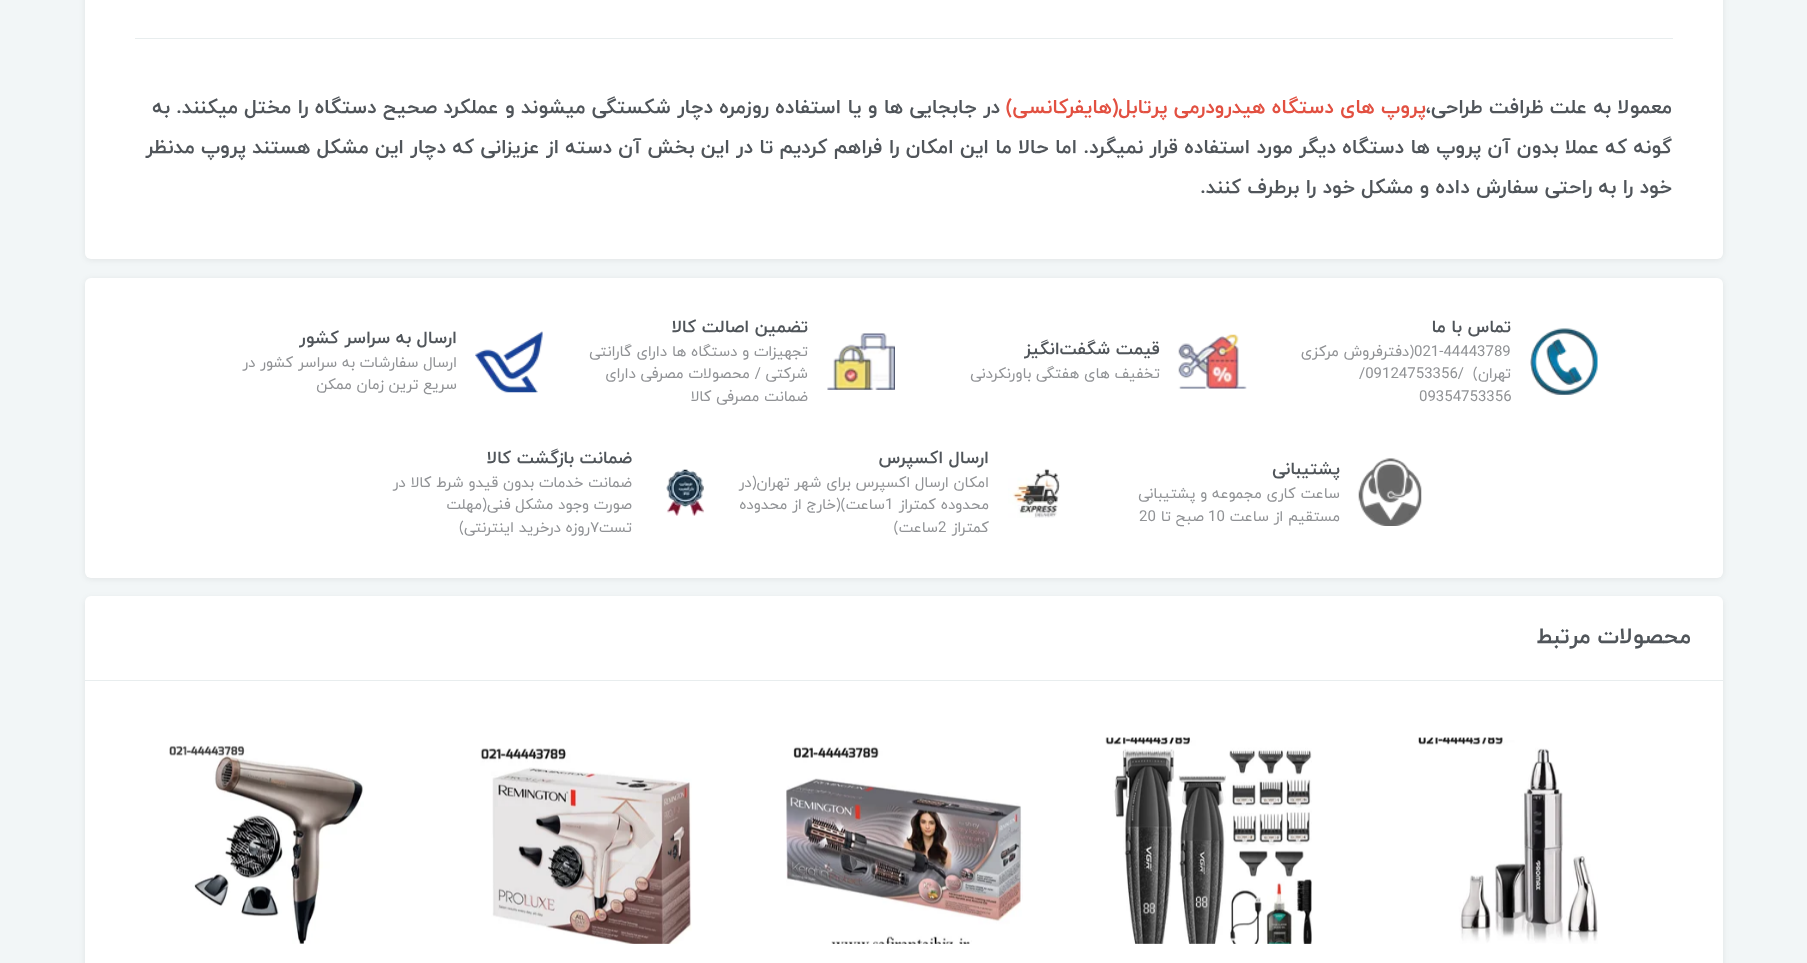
<?xml version="1.0" encoding="UTF-8"?>
<svg xmlns="http://www.w3.org/2000/svg" width="1807" height="963">
    <defs>
        <filter id="blur1" x="-50%" y="-200%" width="200%" height="500%"><feGaussianBlur stdDeviation="3"/></filter>
    </defs>
    <rect width="100%" height="100%" fill="#F2F6F7"/>
    <rect x="85" y="-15" width="1638" height="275" rx="6" fill="#000000" fill-opacity="0.07" filter="url(#blur1)"/>
    <rect x="85" y="-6" width="1638" height="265" rx="6" fill="#FFFFFF"/>
    <rect x="135" y="38" width="1538" height="1" fill="#E8EDEE"/>
    <text x="1672" y="113" font-family="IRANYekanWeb" font-size="20" font-weight="700" direction="rtl" fill="#50555A">معمولا به علت ظرافت طراحی،</text>
    <text x="1426" y="113" font-family="IRANYekanWeb" font-size="20" font-weight="700" direction="rtl" fill="#E25041">پروپ های دستگاه هیدرودرمی پرتابل(هایفرکانسی)</text>
    <text x="1000" y="113" font-family="IRANYekanWeb" font-size="20" font-weight="700" direction="rtl" fill="#50555A">در جابجایی ها و یا استفاده روزمره دچار شکستگی میشوند و عملکرد صحیح دستگاه را مختل میکنند. به</text>
    <text x="1672" y="153" font-family="IRANYekanWeb" font-size="20" font-weight="700" direction="rtl" fill="#50555A">گونه که عملا بدون آن پروپ ها دستگاه دیگر مورد استفاده قرار نمیگرد. اما حالا ما این امکان را فراهم کردیم تا در این بخش آن دسته از عزیزانی که دچار این مشکل هستند پروپ مدنظر</text>
    <text x="1672" y="193" font-family="IRANYekanWeb" font-size="20" font-weight="700" direction="rtl" fill="#50555A">خود را به راحتی سفارش داده و مشکل خود را برطرف کنند.</text>
    <rect x="85" y="279" width="1638" height="300" rx="6" fill="#000000" fill-opacity="0.07" filter="url(#blur1)"/>
    <rect x="85" y="278" width="1638" height="300" rx="6" fill="#FFFFFF"/>
    <image x="1530" y="328" width="68" height="67" href="img_01.png"/>
    <text x="1511" y="332" font-family="IRANYekanWeb" font-size="17.5" font-weight="700" direction="rtl" fill="#50555A">تماس با ما</text>
    <text x="1414" y="356" font-family="IRANYekanWeb" font-size="15" fill="#909295">021-44443789</text>
    <text x="1414" y="356" font-family="IRANYekanWeb" font-size="15" direction="rtl" fill="#909295">(دفترفروش مرکزی</text>
    <text x="1511" y="378" font-family="IRANYekanWeb" font-size="15" direction="rtl" fill="#909295">تهران)</text>
    <text x="1359" y="378" font-family="IRANYekanWeb" font-size="15" fill="#909295">/09124753356/</text>
    <text x="1419" y="401" font-family="IRANYekanWeb" font-size="15" fill="#909295">09354753356</text>
    <image x="1178" y="334" width="69" height="55" href="img_02.png"/>
    <text x="1160" y="354" font-family="IRANYekanWeb" font-size="17.5" font-weight="700" direction="rtl" fill="#50555A">قیمت شگفت‌انگیز</text>
    <text x="1160" y="378" font-family="IRANYekanWeb" font-size="15" direction="rtl" fill="#909295">تخفیف های هفتگی باورنکردنی</text>
    <image x="827" y="333" width="68" height="57" href="img_03.png"/>
    <text x="808" y="332" font-family="IRANYekanWeb" font-size="17.5" font-weight="700" direction="rtl" fill="#50555A">تضمین اصالت کالا</text>
    <text font-family="IRANYekanWeb" font-size="15" direction="rtl" fill="#909295">
        <tspan x="808" y="356">تجهیزات و دستگاه ها دارای گارانتی</tspan>
        <tspan x="808" y="378">شرکتی / محصولات مصرفی دارای</tspan>
        <tspan x="808" y="401">ضمانت مصرفی کالا</tspan>
    </text>
    <image x="475" y="331" width="68" height="62" href="img_04.png"/>
    <text x="457" y="343" font-family="IRANYekanWeb" font-size="17.5" font-weight="700" direction="rtl" fill="#50555A">ارسال به سراسر کشور</text>
    <text font-family="IRANYekanWeb" font-size="15" direction="rtl" fill="#909295">
        <tspan x="457" y="367">ارسال سفارشات به سراسر کشور در</tspan>
        <tspan x="457" y="389">سریع ترین زمان ممکن</tspan>
    </text>
    <image x="1358" y="458" width="64" height="68" href="img_05.png"/>
    <text x="1340" y="474" font-family="IRANYekanWeb" font-size="17.5" font-weight="700" direction="rtl" fill="#50555A">پشتیبانی</text>
    <text font-family="IRANYekanWeb" font-size="15" direction="rtl" fill="#909295">
        <tspan x="1340" y="498">ساعت کاری مجموعه و پشتیبانی</tspan>
        <tspan x="1340" y="521">مستقیم از ساعت</tspan>
    </text>
    <text x="1208" y="521" font-family="IRANYekanWeb" font-size="15" fill="#909295">10</text>
    <text x="1204" y="521" font-family="IRANYekanWeb" font-size="15" direction="rtl" fill="#909295">صبح تا</text>
    <text x="1139" y="521" font-family="IRANYekanWeb" font-size="15" fill="#909295">20</text>
    <image x="1008" y="468" width="52" height="50" href="img_06.png"/>
    <text x="989" y="463" font-family="IRANYekanWeb" font-size="17.5" font-weight="700" direction="rtl" fill="#50555A">ارسال اکسپرس</text>
    <text font-family="IRANYekanWeb" font-size="15" direction="rtl" fill="#909295">
        <tspan x="989" y="487">امکان ارسال اکسپرس برای شهر تهران(در</tspan>
        <tspan x="989" y="509">محدوده کمتراز</tspan>
    </text>
    <text x="885" y="509" font-family="IRANYekanWeb" font-size="15" fill="#909295">1</text>
    <text x="885" y="509" font-family="IRANYekanWeb" font-size="15" direction="rtl" fill="#909295">ساعت)(خارج از محدوده</text>
    <text x="989" y="532" font-family="IRANYekanWeb" font-size="15" direction="rtl" fill="#909295">کمتراز</text>
    <text x="938" y="532" font-family="IRANYekanWeb" font-size="15" fill="#909295">2</text>
    <text x="938" y="532" font-family="IRANYekanWeb" font-size="15" direction="rtl" fill="#909295">ساعت)</text>
    <image x="666" y="469" width="39" height="47" href="img_07.png"/>
    <text x="632" y="463" font-family="IRANYekanWeb" font-size="17.5" font-weight="700" direction="rtl" fill="#50555A">ضمانت بازگشت کالا</text>
    <text font-family="IRANYekanWeb" font-size="15" direction="rtl" fill="#909295">
        <tspan x="632" y="487">ضمانت خدمات بدون قیدو شرط کالا در</tspan>
        <tspan x="632" y="509">صورت وجود مشکل فنی(مهلت</tspan>
        <tspan x="632" y="532">تست</tspan>
    </text>
    <text x="590" y="532" font-family="IRANYekanWeb" font-size="15" fill="#909295">۷</text>
    <text x="590" y="532" font-family="IRANYekanWeb" font-size="15" direction="rtl" fill="#909295">روزه درخرید اینترنتی)</text>
    <rect x="85" y="598" width="1638" height="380" rx="6" fill="#000000" fill-opacity="0.07" filter="url(#blur1)"/>
    <rect x="85" y="596" width="1638" height="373" rx="6" fill="#FFFFFF"/>
    <rect x="85" y="680" width="1638" height="1" fill="#E8EDEE"/>
    <text x="1691" y="643" font-family="IRANYekanWeb" font-size="22.5" font-weight="700" direction="rtl" fill="#50555A">محصولات مرتبط</text>
    <image x="1418" y="737" width="180" height="207" href="img_08.png"/>
    <image x="1105" y="737" width="207" height="207" href="img_09.png"/>
    <image x="786" y="746" width="237" height="198" href="img_10.png"/>
    <image x="480" y="748" width="212" height="196" href="img_11.png"/>
    <image x="169" y="745" width="195" height="199" href="img_12.png"/>
</svg>
